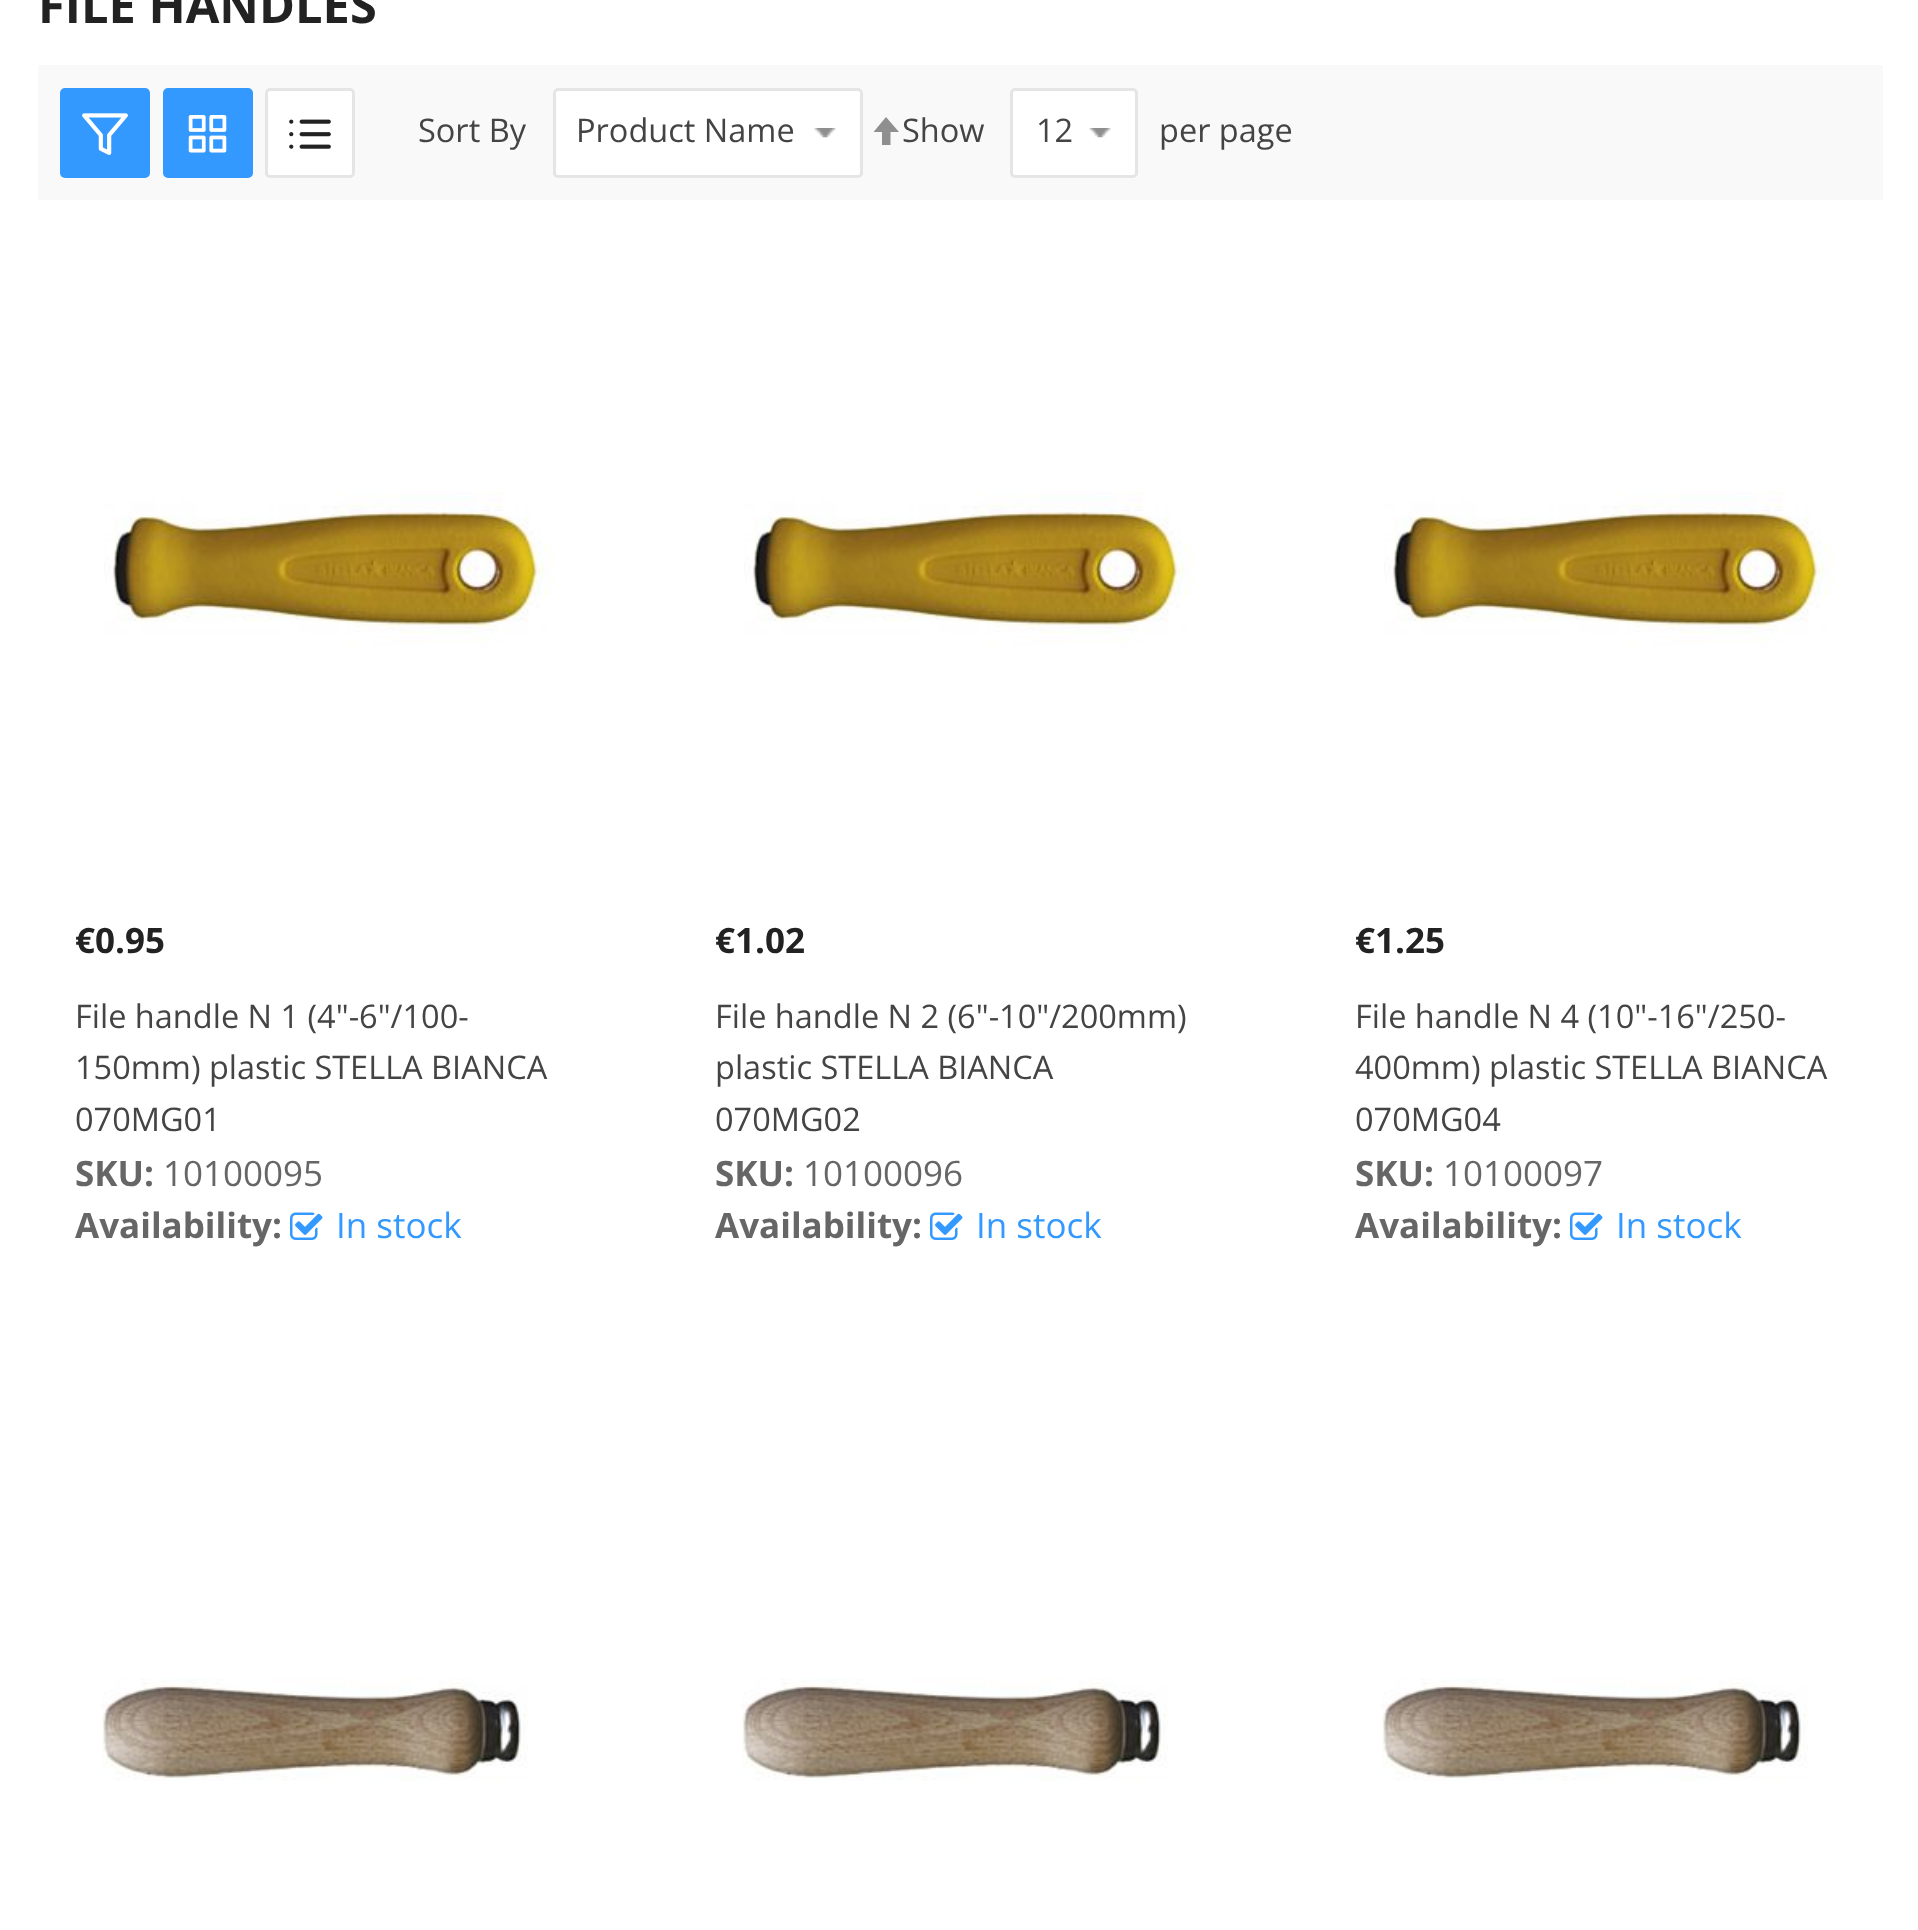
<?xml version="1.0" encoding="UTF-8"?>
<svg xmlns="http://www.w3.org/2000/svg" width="1918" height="1930">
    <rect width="100%" height="100%" fill="#FFFFFF"/>
    <text x="38" y="23" font-family="Open Sans" font-size="48.75" font-weight="700" fill="#222222">FILE HANDLES</text>
    <rect x="38" y="65" width="1845" height="135" fill="#F9F9F9"/>
    <rect x="60" y="88" width="90" height="90" rx="5" fill="#3399FF"/>
    <image x="82" y="113" width="46" height="42" href="img_01.png"/>
    <rect x="164.5" y="89.5" width="87" height="87" rx="3.5" fill="#3399FF" stroke="#3399FF" stroke-width="3"/>
    <image x="188" y="115" width="39" height="38" href="img_02.png"/>
    <rect x="266.5" y="89.5" width="87" height="87" rx="3.5" fill="#FFFFFF" stroke="#E5E5E5" stroke-width="3"/>
    <image x="289" y="119" width="42" height="30" href="img_03.png"/>
    <text x="418" y="142" font-family="Open Sans" font-size="32.5" fill="#444444">Sort By</text>
    <rect x="553" y="88" width="310" height="90" rx="5" fill="#FFFFFF"/>
    <image x="814" y="128" width="22" height="10" href="img_04.png"/>
    <rect x="554.5" y="89.5" width="307" height="87" rx="3.5" fill="none" stroke="#E5E5E5" stroke-width="3"/>
    <text x="576" y="142" font-family="Open Sans" font-size="32.5" fill="#444444">Product Name</text>
    <path d="M 886 117 L 873.5 132 H 882 V 145 H 890.5 V 132 H 899 Z" fill="#8F8F8F"/>
    <text x="902" y="142" font-family="Open Sans" font-size="32.5" fill="#444444">Show</text>
    <rect x="1010" y="88" width="128" height="90" rx="5" fill="#FFFFFF"/>
    <image x="1089" y="128" width="22" height="10" href="img_05.png"/>
    <rect x="1011.5" y="89.5" width="125" height="87" rx="3.5" fill="none" stroke="#E5E5E5" stroke-width="3"/>
    <text x="1036" y="142" font-family="Open Sans" font-size="32.5" fill="#444444">12</text>
    <text x="1159" y="142" font-family="Open Sans" font-size="32.5" fill="#444444">per page</text>
    <image x="104" y="491" width="451" height="155" href="img_06.png"/>
    <text x="75" y="953" font-family="Open Sans" font-size="35" font-weight="700" fill="#222222">€0.95</text>
    <text font-family="Open Sans" font-size="32.5" fill="#444444">
        <tspan x="75" y="1028">File handle N 1 (4"-6"/100-</tspan>
        <tspan x="75" y="1079">150mm) plastic STELLA BIANCA</tspan>
        <tspan x="75" y="1131">070MG01</tspan>
    </text>
    <text x="75" y="1186" font-family="Open Sans" font-size="35" font-weight="700" fill="#666666">SKU:</text>
    <text x="163" y="1186" font-family="Open Sans" font-size="35" fill="#666666">10100095</text>
    <text x="75" y="1238" font-family="Open Sans" font-size="35" font-weight="700" fill="#666666">Availability:</text>
    <image x="290" y="1212" width="33" height="28" href="img_07.png"/>
    <text x="336" y="1238" font-family="Open Sans" font-size="35" fill="#3399FF">In stock</text>
    <image x="744" y="491" width="451" height="155" href="img_06.png"/>
    <text x="715" y="953" font-family="Open Sans" font-size="35" font-weight="700" fill="#222222">€1.02</text>
    <text font-family="Open Sans" font-size="32.5" fill="#444444">
        <tspan x="715" y="1028">File handle N 2 (6"-10"/200mm)</tspan>
        <tspan x="715" y="1079">plastic STELLA BIANCA</tspan>
        <tspan x="715" y="1131">070MG02</tspan>
    </text>
    <text x="715" y="1186" font-family="Open Sans" font-size="35" font-weight="700" fill="#666666">SKU:</text>
    <text x="803" y="1186" font-family="Open Sans" font-size="35" fill="#666666">10100096</text>
    <text x="715" y="1238" font-family="Open Sans" font-size="35" font-weight="700" fill="#666666">Availability:</text>
    <image x="930" y="1212" width="33" height="28" href="img_07.png"/>
    <text x="976" y="1238" font-family="Open Sans" font-size="35" fill="#3399FF">In stock</text>
    <image x="1384" y="491" width="451" height="155" href="img_08.png"/>
    <text x="1355" y="953" font-family="Open Sans" font-size="35" font-weight="700" fill="#222222">€1.25</text>
    <text font-family="Open Sans" font-size="32.5" fill="#444444">
        <tspan x="1355" y="1028">File handle N 4 (10"-16"/250-</tspan>
        <tspan x="1355" y="1079">400mm) plastic STELLA BIANCA</tspan>
        <tspan x="1355" y="1131">070MG04</tspan>
    </text>
    <text x="1355" y="1186" font-family="Open Sans" font-size="35" font-weight="700" fill="#666666">SKU:</text>
    <text x="1443" y="1186" font-family="Open Sans" font-size="35" fill="#666666">10100097</text>
    <text x="1355" y="1238" font-family="Open Sans" font-size="35" font-weight="700" fill="#666666">Availability:</text>
    <image x="1570" y="1212" width="33" height="28" href="img_07.png"/>
    <text x="1616" y="1238" font-family="Open Sans" font-size="35" fill="#3399FF">In stock</text>
    <image x="101" y="1678" width="427" height="103" href="img_09.png"/>
    <image x="741" y="1678" width="427" height="103" href="img_09.png"/>
    <image x="1381" y="1678" width="427" height="103" href="img_10.png"/>
</svg>
